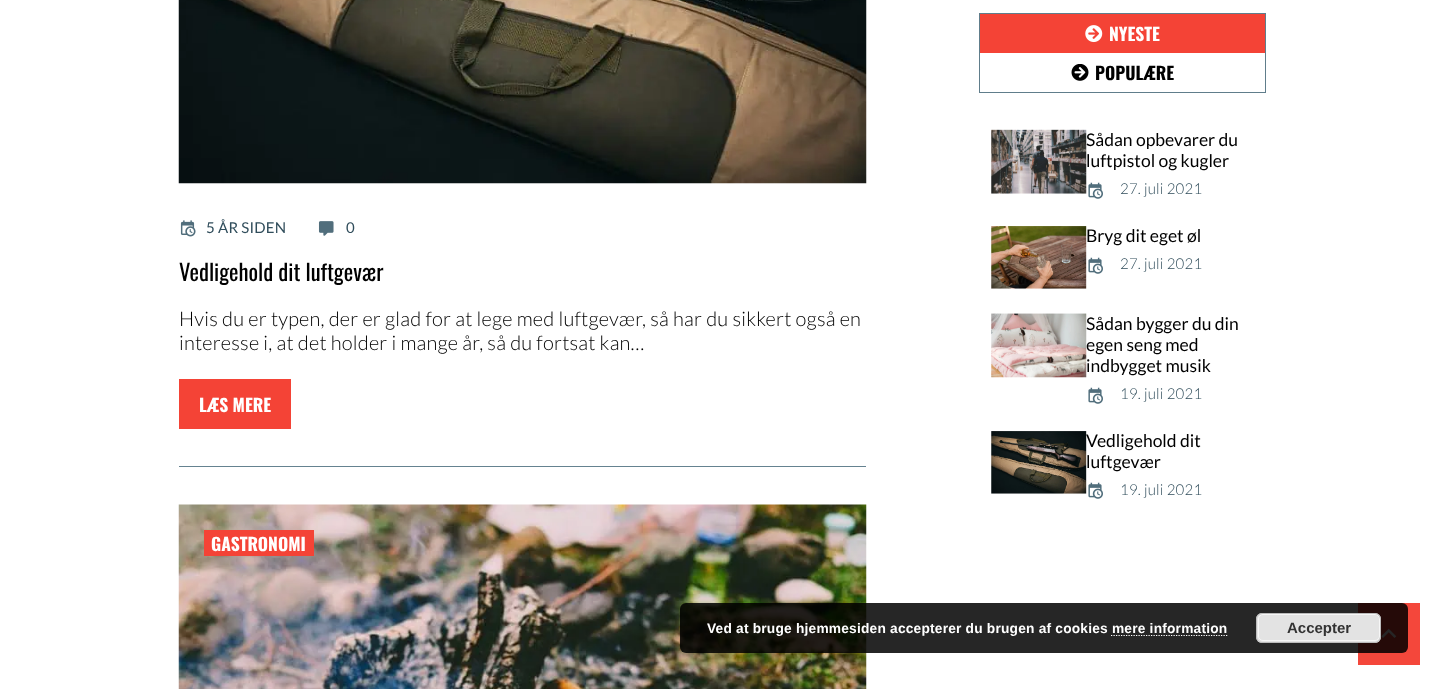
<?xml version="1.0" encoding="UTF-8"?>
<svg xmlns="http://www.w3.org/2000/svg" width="1445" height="689">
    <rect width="100%" height="100%" fill="#FFFFFF"/>
    <image x="178" y="0" width="689" height="184" href="img_01.png"/>
    <image x="180" y="220" width="16" height="17" href="img_02.png"/>
    <text x="206" y="233" font-family="Lato" font-size="15" letter-spacing="0.2" fill="#304D5B">5 ÅR SIDEN</text>
    <image x="318" y="221" width="16" height="15" href="img_03.png"/>
    <text x="346" y="233" font-family="Lato" font-size="15" letter-spacing="0.2" fill="#304D5B">0</text>
    <text x="179" y="281" font-family="Oswald" font-size="22.5" fill="#000000">Vedligehold dit luftgevær</text>
    <text font-family="Lato" font-size="20" font-weight="300" letter-spacing="0.2" fill="#000000">
        <tspan x="179" y="326">Hvis du er typen, der er glad for at lege med luftgevær, så har du sikkert også en</tspan>
        <tspan x="179" y="350">interesse i, at det holder i mange år, så du fortsat kan…</tspan>
    </text>
    <rect x="179" y="379" width="112" height="50" fill="#F44336"/>
    <text x="199" y="412" font-family="Oswald" font-size="17.5" font-weight="700" fill="#FFFFFF">LÆS MERE</text>
    <rect x="179" y="466" width="687" height="1" fill="#658290"/>
    <image x="178" y="504" width="689" height="185" href="img_04.png"/>
    <rect x="204" y="530" width="110" height="26" fill="#F44336"/>
    <text x="211" y="551" font-family="Oswald" font-size="17.5" font-weight="700" fill="#FFFFFF">GASTRONOMI</text>
    <rect x="979.5" y="13.5" width="286" height="79" fill="none" stroke="#607D8B"/>
    <rect x="980" y="14" width="285" height="39" fill="#F44336"/>
    <image x="1085" y="25" width="18" height="18" href="img_05.png"/>
    <text x="1109" y="41" font-family="Oswald" font-size="17.5" font-weight="700" fill="#FFFFFF">NYESTE</text>
    <image x="1071" y="64" width="18" height="17" href="img_06.png"/>
    <text x="1095" y="80" font-family="Oswald" font-size="17.5" font-weight="700" fill="#000000">POPULÆRE</text>
    <text x="1086" y="146" font-family="Lato" font-size="17.5" fill="#000000">Sådan opbevarer du</text>
    <image x="991" y="129" width="96" height="65" href="img_07.png"/>
    <text x="1086" y="167" font-family="Lato" font-size="17.5" fill="#000000">luftpistol og kugler</text>
    <image x="1088" y="182" width="15" height="17" href="img_08.png"/>
    <text x="1120" y="194" font-family="Lato" font-size="15" font-weight="300" letter-spacing="0.2" fill="#304D5B">27. juli 2021</text>
    <image x="991" y="226" width="96" height="63" href="img_09.png"/>
    <text x="1086" y="242" font-family="Lato" font-size="17.5" fill="#000000">Bryg dit eget øl</text>
    <image x="1088" y="257" width="15" height="17" href="img_08.png"/>
    <text x="1120" y="269" font-family="Lato" font-size="15" font-weight="300" letter-spacing="0.2" fill="#304D5B">27. juli 2021</text>
    <text font-family="Lato" font-size="17.5" fill="#000000">
        <tspan x="1086" y="330">Sådan bygger du din</tspan>
        <tspan x="1086" y="351">egen seng med</tspan>
        <tspan x="1086" y="372">indbygget musik</tspan>
    </text>
    <image x="991" y="313" width="96" height="65" href="img_10.png"/>
    <image x="1088" y="387" width="15" height="17" href="img_08.png"/>
    <text x="1120" y="399" font-family="Lato" font-size="15" font-weight="300" letter-spacing="0.2" fill="#304D5B">19. juli 2021</text>
    <text x="1086" y="447" font-family="Lato" font-size="17.5" fill="#000000">Vedligehold dit</text>
    <image x="991" y="431" width="96" height="63" href="img_11.png"/>
    <text x="1086" y="468" font-family="Lato" font-size="17.5" fill="#000000">luftgevær</text>
    <image x="1088" y="482" width="15" height="17" href="img_08.png"/>
    <text x="1120" y="495" font-family="Lato" font-size="15" font-weight="300" letter-spacing="0.2" fill="#304D5B">19. juli 2021</text>
    <rect x="1358" y="603" width="62" height="62" fill="#F4473B"/>
    <image x="1381" y="628" width="16" height="10" href="img_12.png"/>
    <rect x="680" y="603" width="728" height="50" rx="6" fill="#000000" fill-opacity="0.85"/>
    <text x="707" y="633" font-family="Liberation Sans" font-size="13.75" font-weight="700" letter-spacing="0.2" fill="#FFFFFF">Ved at bruge hjemmesiden accepterer du brugen af cookies mere information</text>
    <rect x="1256" y="613" width="125" height="30" rx="6" fill="#E3E3E3"/>
    <rect x="1258.5" y="614.5" width="121" height="26" rx="4.5" fill="none" stroke="#F6F6F6"/>
    <rect x="1256.5" y="613.5" width="124" height="29" rx="5.5" fill="none" stroke="#BBBBBB"/>
    <text x="1287" y="633" font-family="Liberation Sans" font-size="15" font-weight="700" fill="#333333">Accepter</text>
    <path d="M 1111 635.5 H 1227.5" fill="none" stroke="#FFFFFF" stroke-width="1.2" stroke-dasharray="1.25 1.25"/>
</svg>
